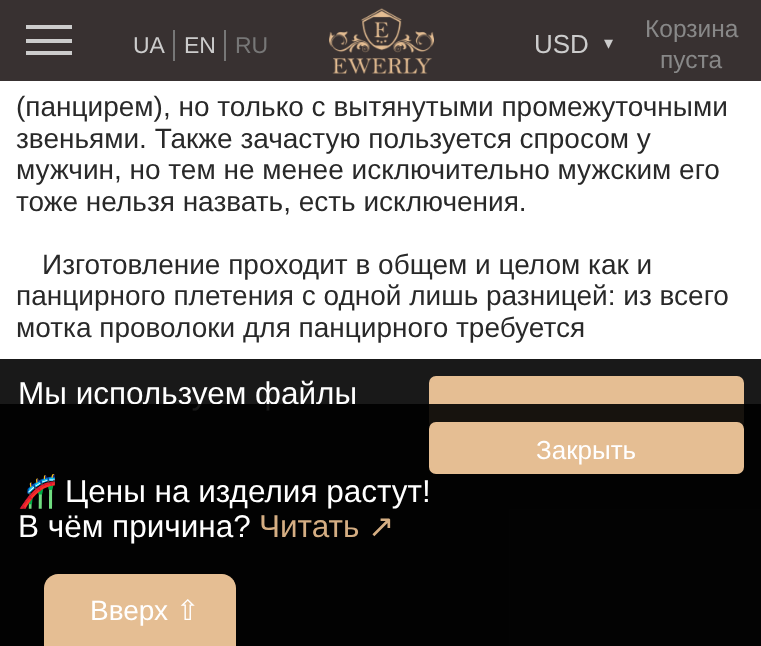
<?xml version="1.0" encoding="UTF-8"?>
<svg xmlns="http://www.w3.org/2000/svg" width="761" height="646">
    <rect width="100%" height="100%" fill="#FFFFFF"/>
    <rect x="0" y="0" width="761" height="81" fill="#322A2A" fill-opacity="0.97"/>
    <rect x="26" y="25" width="46" height="4" fill="#CCCCCC"/>
    <rect x="26" y="51" width="46" height="4" fill="#CCCCCC"/>
    <rect x="26" y="39" width="46" height="4" fill="#CCCCCC"/>
    <rect x="173" y="30" width="2" height="31" fill="#777777"/>
    <text x="133" y="53" font-family="Liberation Sans" font-size="23" fill="#CCCCCC">UA</text>
    <text x="184" y="53" font-family="Liberation Sans" font-size="23" fill="#CCCCCC">EN</text>
    <rect x="224" y="30" width="2" height="31" fill="#777777"/>
    <text x="235" y="53" font-family="Liberation Sans" font-size="23" fill="#777777">RU</text>
    <image x="329" y="8" width="105" height="66" href="img_01.png"/>
    <text x="534" y="53" font-family="Liberation Sans" font-size="26" fill="#CCCCCC">USD</text>
    <text x="604" y="49" font-family="DejaVu Sans" font-size="18" fill="#CCCCCC">▾</text>
    <text x="645" y="37" font-family="Liberation Sans" font-size="24.5" fill="#888888">Корзина</text>
    <text x="660" y="68" font-family="Liberation Sans" font-size="24.5" fill="#888888">пуста</text>
    <text font-family="Liberation Sans" font-size="28" fill="#292929">
        <tspan x="16" y="116">(панцирем), но только с вытянутыми промежуточными</tspan>
        <tspan x="16" y="148">звеньями. Также зачастую пользуется спросом у</tspan>
        <tspan x="16" y="179">мужчин, но тем не менее исключительно мужским его</tspan>
        <tspan x="16" y="211">тоже нельзя назвать, есть исключения.</tspan>
    </text>
    <text x="42" y="274" font-family="Liberation Sans" font-size="28" fill="#292929">Изготовление проходит в общем и целом как и</text>
    <text font-family="Liberation Sans" font-size="28" fill="#292929">
        <tspan x="16" y="305">панцирного плетения с одной лишь разницей: из всего</tspan>
        <tspan x="16" y="337">мотка проволоки для панцирного требуется</tspan>
    </text>
    <rect x="0" y="359" width="761" height="287" fill="#000000" fill-opacity="0.9"/>
    <text x="18" y="404" font-family="Liberation Sans" font-size="31.5" fill="#FFFFFF">Мы используем файлы</text>
    <rect x="430" y="377" width="313" height="51" rx="6" fill="#E5BE93" stroke="#E5BE93" stroke-width="2"/>
    <rect x="0" y="404" width="761" height="242" fill="#000000" fill-opacity="0.9"/>
    <rect x="430" y="423" width="313" height="50" rx="6" fill="#E5BE93" stroke="#E5BE93" stroke-width="2"/>
    <text x="536" y="459" font-family="Liberation Sans" font-size="26" fill="#FFFFFF">Закрыть</text>
    <text x="18" y="502" font-family="Noto Color Emoji" font-size="31.5" fill="#FFFFFF">🎢</text>
    <text x="65" y="502" font-family="Liberation Sans" font-size="31.5" fill="#FFFFFF">Цены на изделия растут!</text>
    <text x="18" y="537" font-family="Liberation Sans" font-size="31.5" fill="#FFFFFF">В чём причина?</text>
    <text x="259" y="537" font-family="Liberation Sans" font-size="31.5" fill="#D5AE83">Читать</text>
    <text x="368" y="537" font-family="DejaVu Sans" font-size="31.5" fill="#D5AE83">↗</text>
    <path d="M 58 574 H 222 C 229.5 574 236 580.5 236 588 V 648 H 44 V 588 C 44 580.5 50.5 574 58 574 Z" fill="#E5BE93"/>
    <text x="90" y="620" font-family="Liberation Sans" font-size="28" fill="#FFFFFF">Вверх</text>
    <text x="176" y="620" font-family="DejaVu Sans" font-size="28" fill="#FFFFFF">⇧</text>
</svg>
